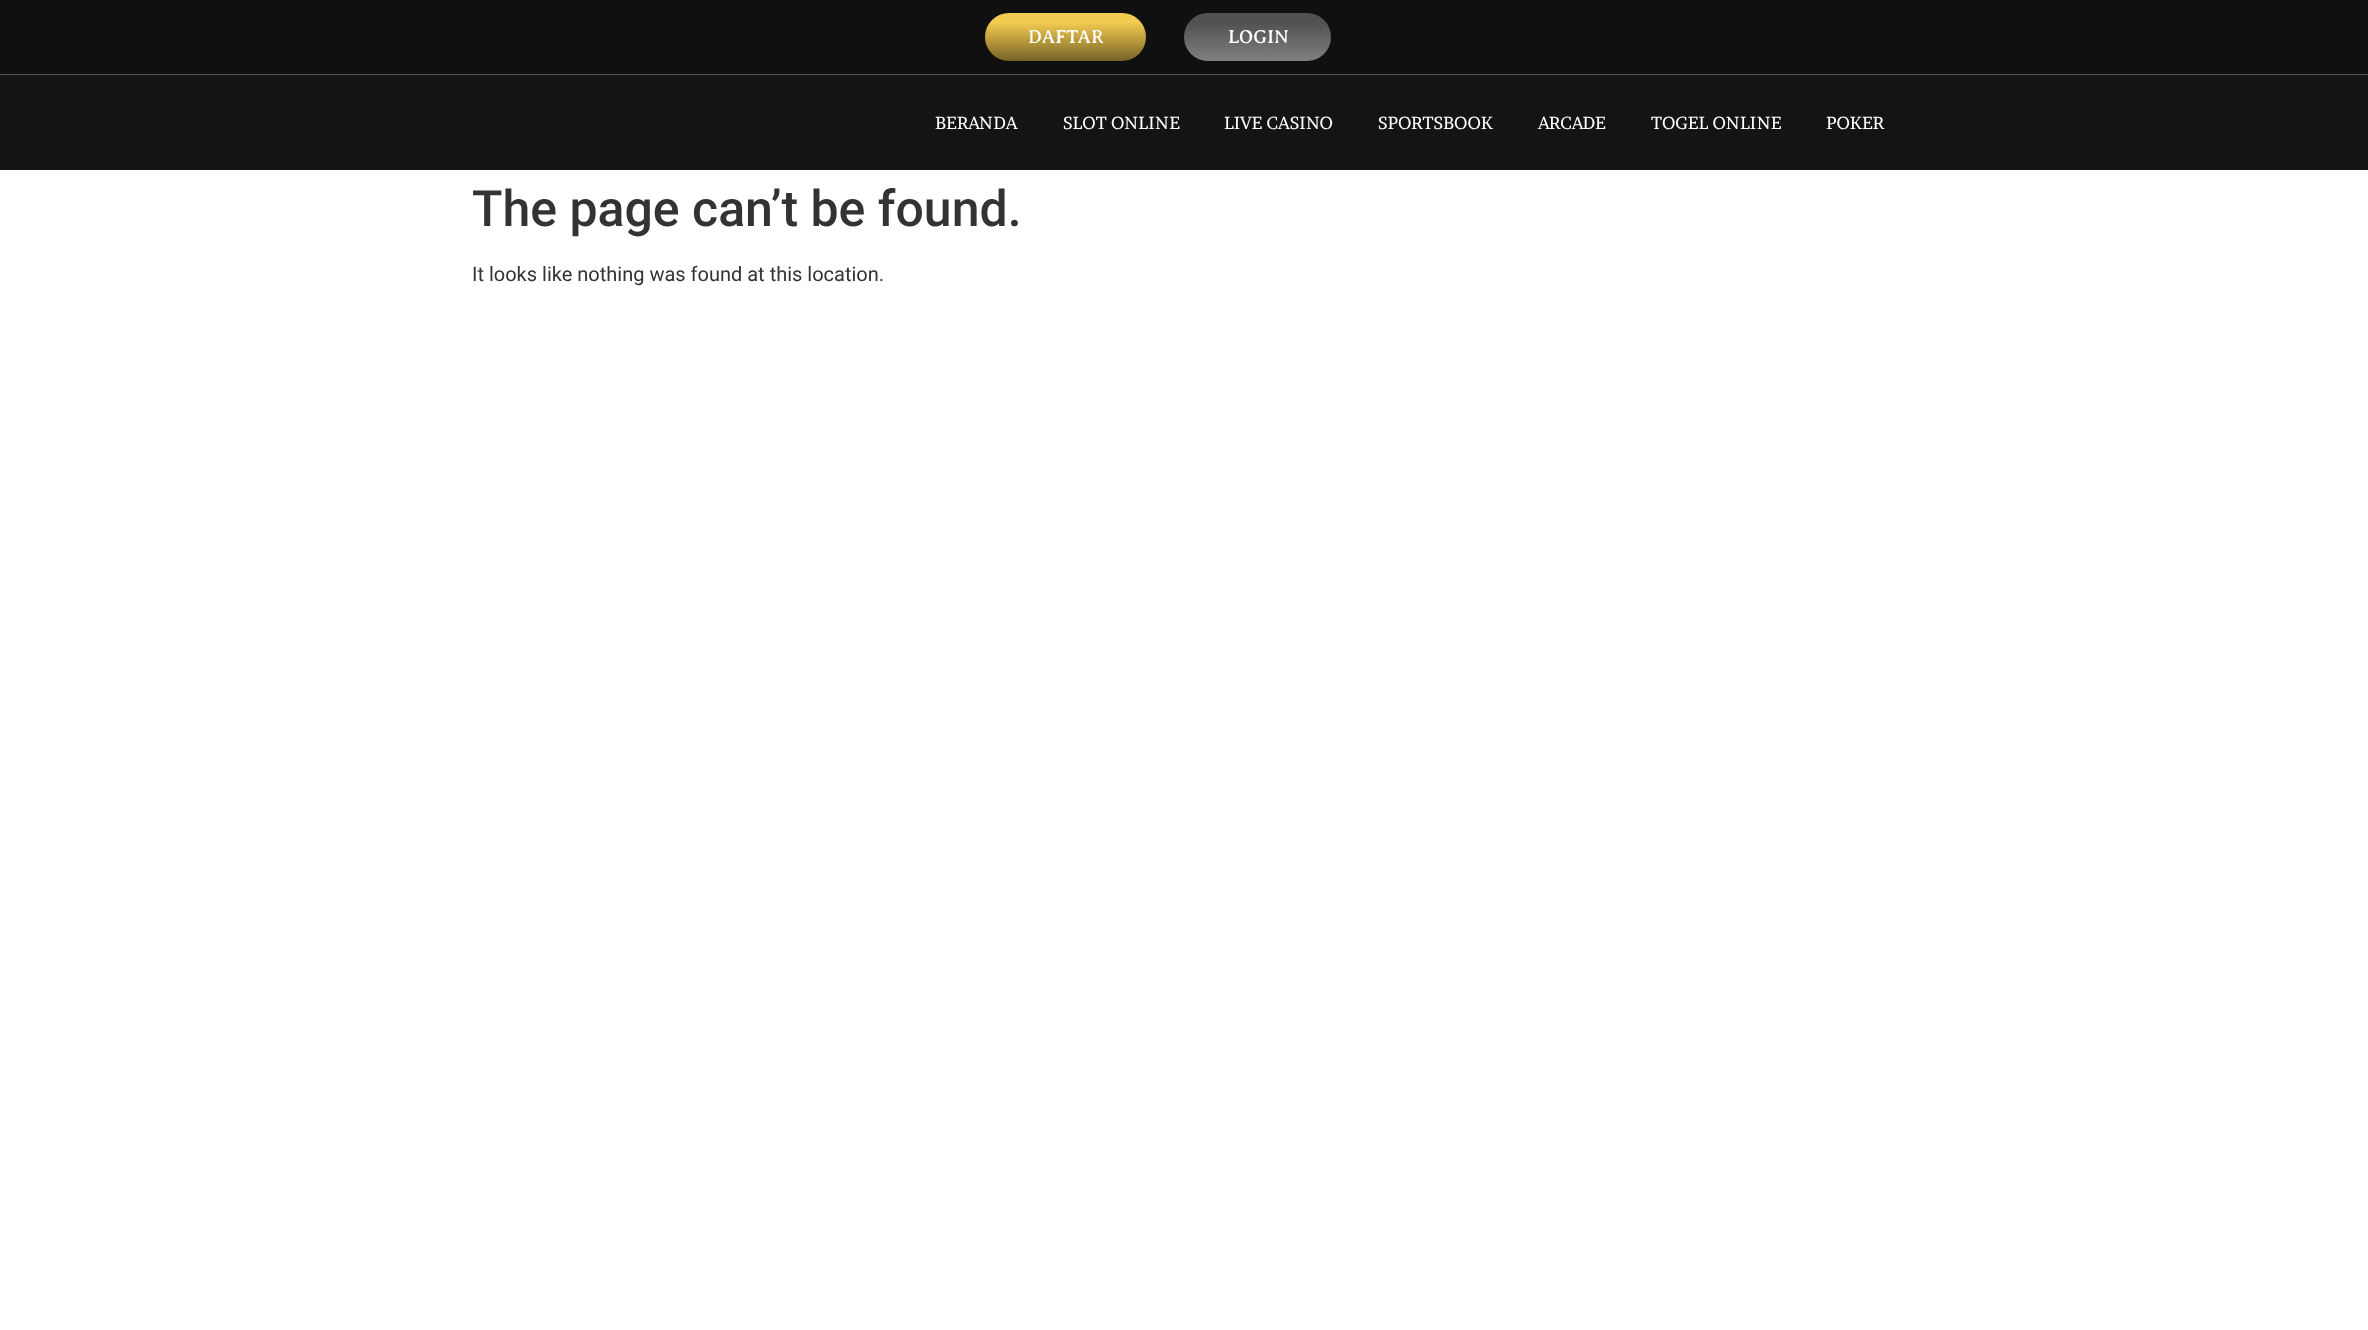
<?xml version="1.0" encoding="UTF-8"?>
<svg xmlns="http://www.w3.org/2000/svg" width="2368" height="1330">
    <defs>
        <linearGradient id="g1" gradientUnits="userSpaceOnUse" x1="1066" y1="12" x2="1066" y2="61"><stop offset="0.21" stop-color="#F3CB51"/><stop offset="1" stop-color="#776327"/></linearGradient>
        <linearGradient id="g2" gradientUnits="userSpaceOnUse" x1="1258" y1="12" x2="1258" y2="61"><stop offset="0.21" stop-color="#515151"/><stop offset="1" stop-color="#808080"/></linearGradient>
    </defs>
    <rect width="100%" height="100%" fill="#FFFFFF"/>
    <rect x="0" y="0" width="2368" height="74" fill="#101010"/>
    <rect x="0" y="74" width="2368" height="1" fill="#555555"/>
    <rect x="985" y="13" width="161" height="48" rx="24" fill="url(#g1)"/>
    <text x="1028" y="43" font-family="Averia Serif Libre" font-size="19" fill="#FFFFFF">DAFTAR</text>
    <rect x="1184" y="13" width="147" height="48" rx="24" fill="url(#g2)"/>
    <text x="1228" y="43" font-family="Averia Serif Libre" font-size="19" fill="#FFFFFF">LOGIN</text>
    <rect x="0" y="75" width="2368" height="95" fill="#141414"/>
    <text x="935" y="129" font-family="Brawler" font-size="17.5" fill="#FFFFFF">BERANDA</text>
    <text x="1063" y="129" font-family="Brawler" font-size="17.5" fill="#FFFFFF">SLOT ONLINE</text>
    <text x="1224" y="129" font-family="Brawler" font-size="17.5" fill="#FFFFFF">LIVE CASINO</text>
    <text x="1378" y="129" font-family="Brawler" font-size="17.5" fill="#FFFFFF">SPORTSBOOK</text>
    <text x="1538" y="129" font-family="Brawler" font-size="17.5" fill="#FFFFFF">ARCADE</text>
    <text x="1651" y="129" font-family="Brawler" font-size="17.5" fill="#FFFFFF">TOGEL ONLINE</text>
    <text x="1826" y="129" font-family="Brawler" font-size="17.5" fill="#FFFFFF">POKER</text>
    <text x="472" y="226" font-family="Roboto" font-size="50" font-weight="500" fill="#333333">The page can’t be found.</text>
    <text x="472" y="281" font-family="Roboto" font-size="20" fill="#333333">It looks like nothing was found at this location.</text>
</svg>
